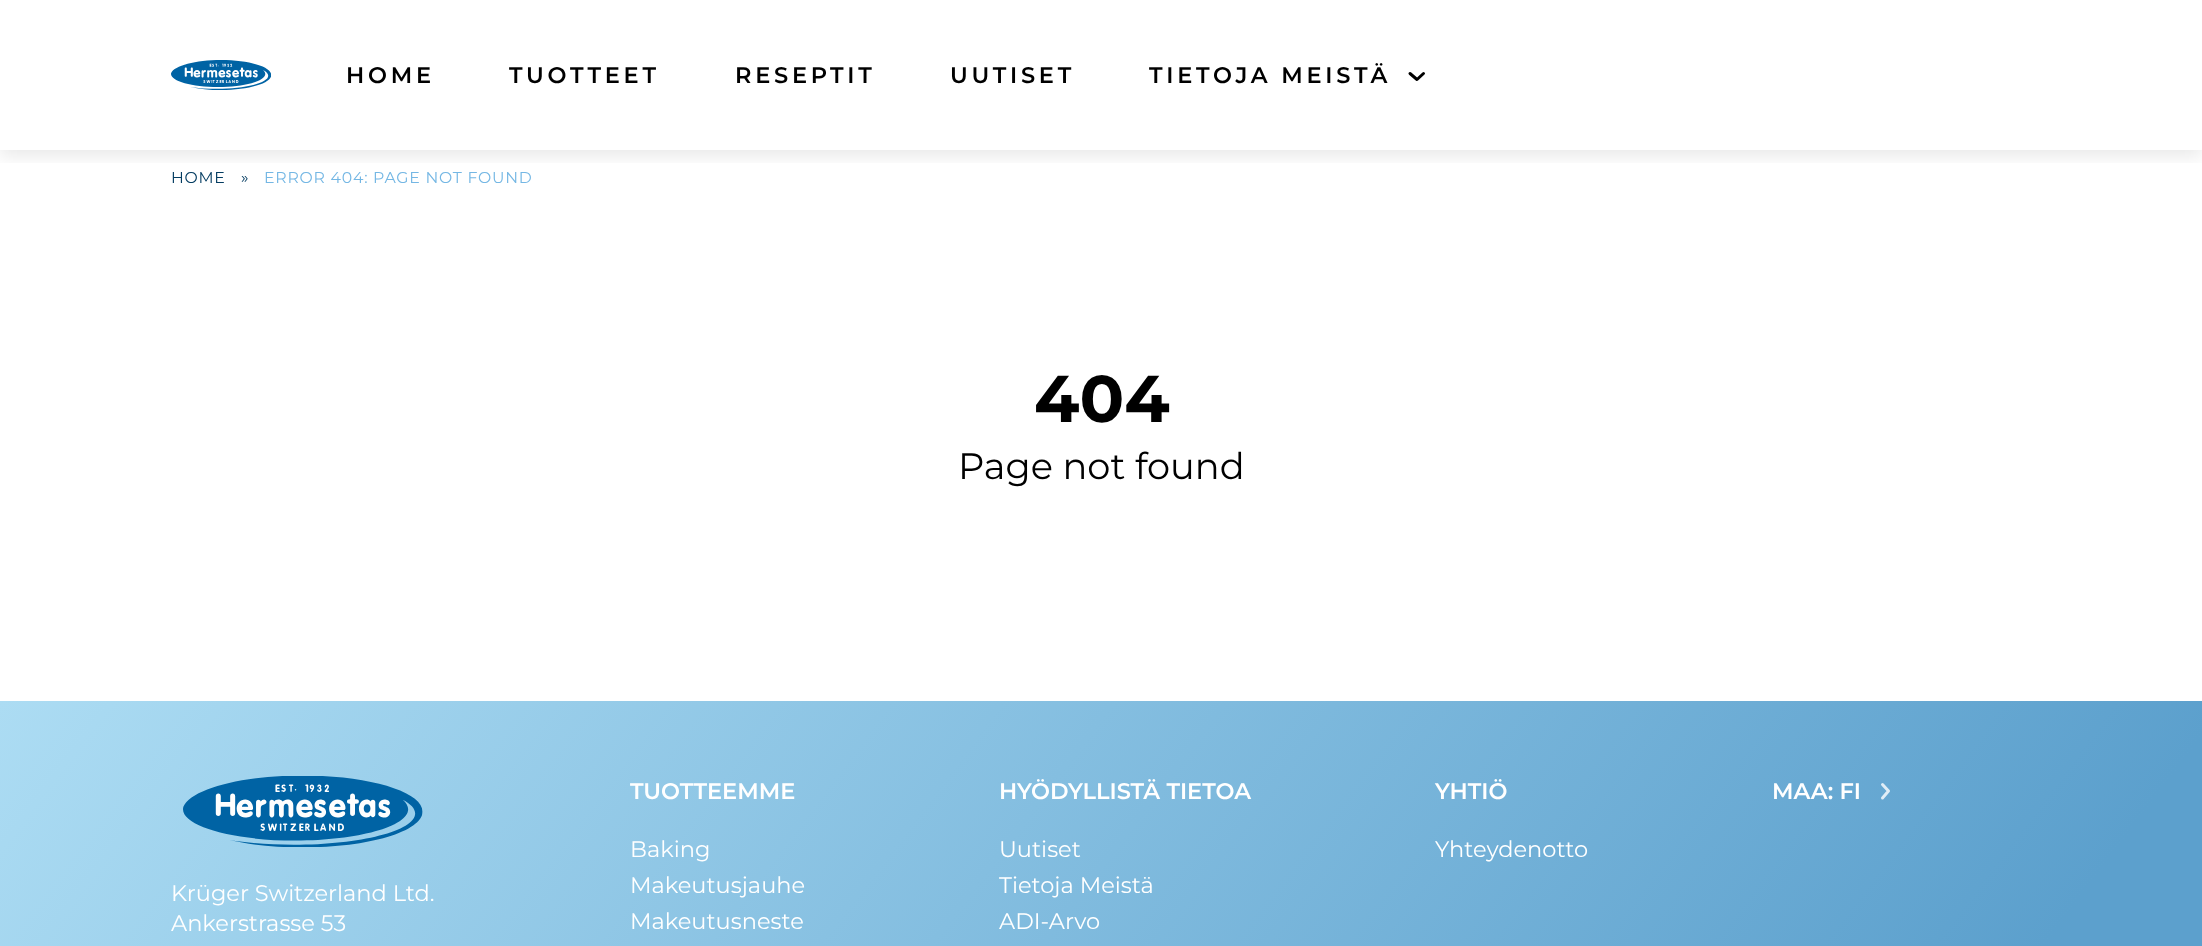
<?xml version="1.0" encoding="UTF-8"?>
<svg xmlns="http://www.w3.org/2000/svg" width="2202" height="946">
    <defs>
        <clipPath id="clip1"><rect x="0" y="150" width="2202" height="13"/></clipPath>
        <filter id="blur1" x="-50%" y="-200%" width="200%" height="500%"><feGaussianBlur stdDeviation="9"/></filter>
        <linearGradient id="g1" gradientUnits="userSpaceOnUse" x1="302" y1="300" x2="1900" y2="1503"><stop offset="0" stop-color="#ACDCF3"/><stop offset="0.89" stop-color="#5CA0CD"/></linearGradient>
        <clipPath id="clip2"><rect x="630" y="776" width="186" height="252"/></clipPath>
    </defs>
    <rect width="100%" height="100%" fill="#FFFFFF"/>
    <g clip-path="url(#clip1)">
        <rect x="0" y="6" width="2202" height="150" fill="#000000" fill-opacity="0.09" filter="url(#blur1)"/>
    </g>
    <image x="171" y="60" width="100" height="30" href="img_01.png"/>
    <text x="346" y="83" font-family="'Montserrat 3'" font-size="22.5" font-weight="100" letter-spacing="3.75" fill="#000000">HOME</text>
    <text x="509" y="83" font-family="'Montserrat 3'" font-size="22.5" font-weight="100" letter-spacing="3.75" fill="#000000">TUOTTEET</text>
    <text x="735" y="83" font-family="'Montserrat 3'" font-size="22.5" font-weight="100" letter-spacing="3.75" fill="#000000">RESEPTIT</text>
    <text x="950" y="83" font-family="'Montserrat 3'" font-size="22.5" font-weight="100" letter-spacing="3.75" fill="#000000">UUTISET</text>
    <path d="M 1410 73.5 L 1417 79.5 L 1423.5 73.5" fill="none" stroke="#000000" stroke-width="3" stroke-linecap="round" stroke-linejoin="round"/>
    <text x="1149" y="83" font-family="'Montserrat 3'" font-size="22.5" font-weight="100" letter-spacing="3.75" fill="#000000">TIETOJA MEISTÄ</text>
    <text x="171" y="183" font-family="Montserrat" font-size="15.75" font-weight="100" letter-spacing="0.75" fill="#043C61">HOME</text>
    <text x="241" y="183" font-family="Montserrat" font-size="15.75" font-weight="100" letter-spacing="0.75" fill="#043C61">»</text>
    <text x="264" y="183" font-family="Montserrat" font-size="15.75" font-weight="100" letter-spacing="0.75" fill="#74B7E4">ERROR 404: PAGE NOT FOUND</text>
    <text x="1034" y="422" font-family="'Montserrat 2'" font-size="66" font-weight="100" fill="#000000">404</text>
    <text x="958" y="479" font-family="Montserrat" font-size="36.75" font-weight="100" fill="#000000">Page not found</text>
    <rect x="0" y="701" width="2202" height="245" fill="url(#g1)"/>
    <image x="183" y="776" width="240" height="71" href="img_02.png"/>
    <text font-family="Montserrat" font-size="22.5" font-weight="100" fill="#FFFFFF">
        <tspan x="171" y="901">Krüger Switzerland Ltd.</tspan>
        <tspan x="171" y="931">Ankerstrasse 53</tspan>
    </text>
    <g clip-path="url(#clip2)">
        <text x="630" y="799" font-family="'Montserrat 3'" font-size="22.5" font-weight="100" fill="#FFFFFF">TUOTTEEMME</text>
    </g>
    <text font-family="Montserrat" font-size="22.5" font-weight="100" fill="#FFFFFF">
        <tspan x="630" y="857">Baking</tspan>
        <tspan x="630" y="893">Makeutusjauhe</tspan>
        <tspan x="630" y="929">Makeutusneste</tspan>
    </text>
    <text x="999" y="799" font-family="'Montserrat 3'" font-size="22.5" font-weight="100" fill="#FFFFFF">HYÖDYLLISTÄ TIETOA</text>
    <text font-family="Montserrat" font-size="22.5" font-weight="100" fill="#FFFFFF">
        <tspan x="999" y="857">Uutiset</tspan>
        <tspan x="999" y="893">Tietoja Meistä</tspan>
        <tspan x="999" y="929">ADI-Arvo</tspan>
    </text>
    <text x="1435" y="799" font-family="'Montserrat 3'" font-size="22.5" font-weight="100" fill="#FFFFFF">YHTIÖ</text>
    <text x="1435" y="857" font-family="Montserrat" font-size="22.5" font-weight="100" fill="#FFFFFF">Yhteydenotto</text>
    <text x="1772" y="799" font-family="'Montserrat 3'" font-size="22.5" font-weight="100" fill="#FFFFFF">MAA: FI</text>
    <path d="M 1882.5 798 L 1888.5 791 L 1882.5 784.5" fill="none" stroke="#E0EDF6" stroke-width="3" stroke-linecap="round" stroke-linejoin="round"/>
</svg>
